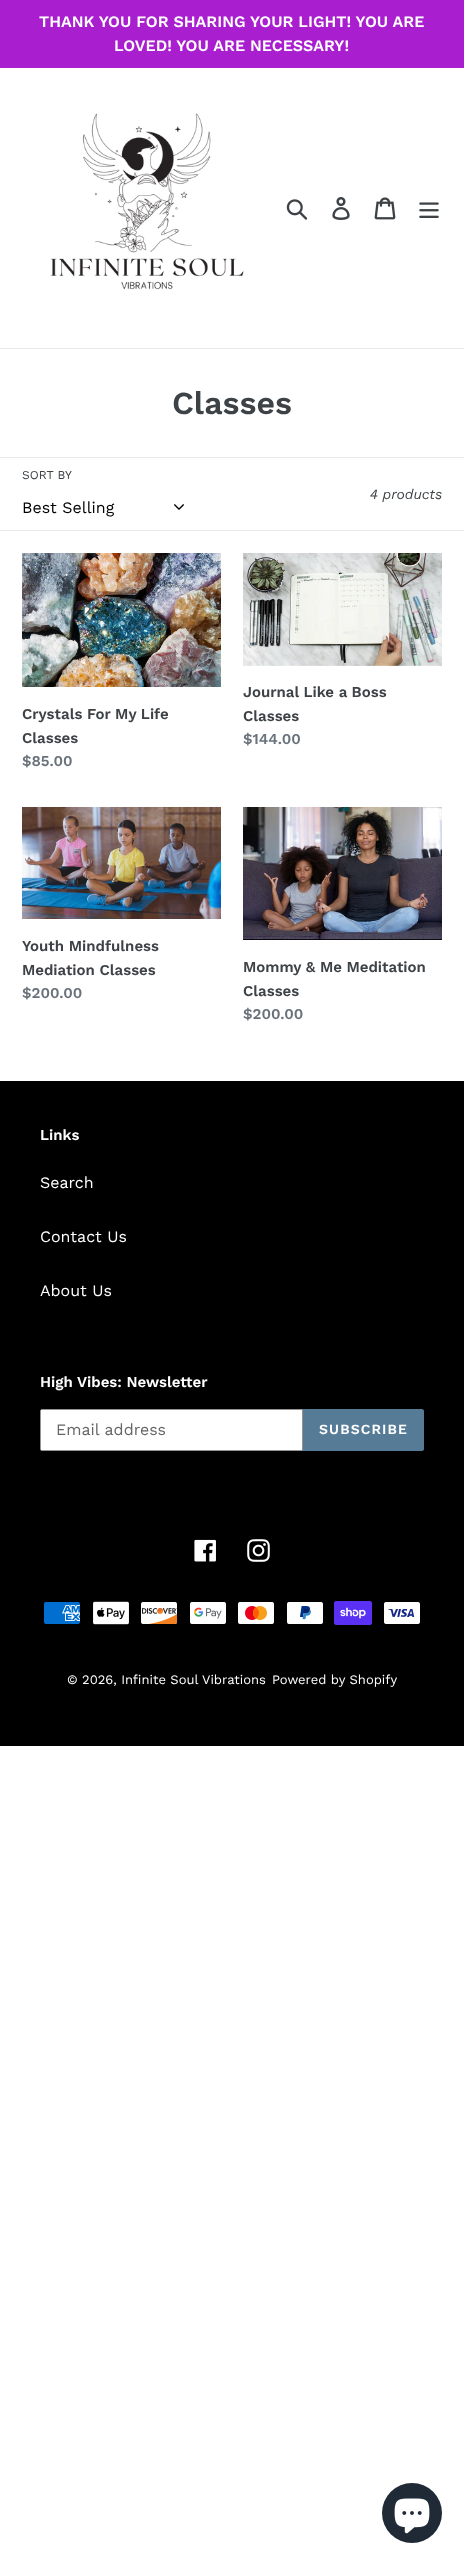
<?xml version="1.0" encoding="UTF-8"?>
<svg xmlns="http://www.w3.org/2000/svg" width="464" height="2564">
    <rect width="100%" height="100%" fill="#FFFFFF"/>
    <rect x="0" y="0" width="464" height="68" fill="#A91ECE"/>
    <text x="39" y="27" font-family="Work Sans" font-size="16" font-weight="600" fill="#FFFFFF">THANK YOU FOR SHARING YOUR LIGHT! YOU ARE</text>
    <text x="114" y="51" font-family="Work Sans" font-size="16" font-weight="600" fill="#FFFFFF">LOVED! YOU ARE NECESSARY!</text>
    <rect x="0" y="348" width="464" height="1" fill="#E8E9EB"/>
    <image x="50" y="113" width="194" height="177" href="img_01.png"/>
    <image x="286" y="199" width="22" height="21" href="img_02.png"/>
    <image x="332" y="197" width="18" height="23" href="img_03.png"/>
    <image x="374" y="197" width="22" height="23" href="img_04.png"/>
    <image x="419" y="202" width="20" height="16" href="img_05.png"/>
    <text x="172" y="414" font-family="Work Sans" font-size="32" font-weight="600" fill="#3D4246">Classes</text>
    <rect x="0" y="457" width="464" height="1" fill="#E8E9EB"/>
    <rect x="0" y="530" width="464" height="1" fill="#E8E9EB"/>
    <text x="22" y="479" font-family="Work Sans" font-size="12" fill="#3D4246">SORT BY</text>
    <text x="22" y="513" font-family="Work Sans" font-size="16" fill="#000000">Best Selling</text>
    <image x="174" y="504" width="10" height="6" href="img_06.png"/>
    <text x="370" y="499" font-family="Work Sans" font-size="14" font-style="italic" fill="#3D4246">4 products</text>
    <image x="22" y="553" width="199" height="134" href="img_07.png"/>
    <text font-family="Work Sans" font-size="15" font-weight="600" fill="#3D4246">
        <tspan x="22" y="719">Crystals For My Life</tspan>
        <tspan x="22" y="743">Classes</tspan>
    </text>
    <text x="22" y="766" font-family="Work Sans" font-size="15" font-weight="600" fill="#69727B">$85.00</text>
    <image x="243" y="553" width="199" height="113" href="img_08.png"/>
    <text font-family="Work Sans" font-size="15" font-weight="600" fill="#3D4246">
        <tspan x="243" y="697">Journal Like a Boss</tspan>
        <tspan x="243" y="721">Classes</tspan>
    </text>
    <text x="243" y="744" font-family="Work Sans" font-size="15" font-weight="600" fill="#69727B">$144.00</text>
    <image x="22" y="807" width="199" height="112" href="img_09.png"/>
    <text font-family="Work Sans" font-size="15" font-weight="600" fill="#3D4246">
        <tspan x="22" y="951">Youth Mindfulness</tspan>
        <tspan x="22" y="975">Mediation Classes</tspan>
    </text>
    <text x="22" y="998" font-family="Work Sans" font-size="15" font-weight="600" fill="#69727B">$200.00</text>
    <image x="243" y="807" width="199" height="133" href="img_10.png"/>
    <text font-family="Work Sans" font-size="15" font-weight="600" fill="#3D4246">
        <tspan x="243" y="972">Mommy &amp; Me Meditation</tspan>
        <tspan x="243" y="996">Classes</tspan>
    </text>
    <text x="243" y="1019" font-family="Work Sans" font-size="15" font-weight="600" fill="#69727B">$200.00</text>
    <rect x="0" y="1081" width="464" height="665" fill="#000000"/>
    <text x="40" y="1140" font-family="Work Sans" font-size="15" font-weight="600" fill="#FFFFFF">Links</text>
    <text x="40" y="1188" font-family="Work Sans" font-size="16" fill="#FFFFFF">Search</text>
    <text x="40" y="1242" font-family="Work Sans" font-size="16" fill="#FFFFFF">Contact Us</text>
    <text x="40" y="1296" font-family="Work Sans" font-size="16" fill="#FFFFFF">About Us</text>
    <text x="40" y="1387" font-family="Work Sans" font-size="15" font-weight="600" fill="#FFFFFF">High Vibes: Newsletter</text>
    <path d="M 42 1409.5 H 302.5 V 1450.5 H 42 C 41 1450.5 40.5 1450 40.5 1449 V 1411 C 40.5 1410 41 1409.5 42 1409.5 Z" fill="#FFFFFF" stroke="#949494"/>
    <text x="56" y="1435" font-family="Work Sans" font-size="16" fill="#666666">Email address</text>
    <path d="M 303 1409 H 422 C 423 1409 424 1410 424 1411 V 1449 C 424 1450 423 1451 422 1451 H 303 Z" fill="#557B97"/>
    <text x="319" y="1434" font-family="Work Sans" font-size="14" font-weight="600" letter-spacing="1.1" fill="#FFFFFF">SUBSCRIBE</text>
    <image x="194" y="1539" width="22" height="23" href="img_11.png"/>
    <image x="247" y="1539" width="23" height="23" href="img_12.png"/>
    <image x="44" y="1602" width="36" height="22" href="img_13.png"/>
    <image x="93" y="1601" width="36" height="24" href="img_14.png"/>
    <image x="141" y="1602" width="37" height="22" href="img_15.png"/>
    <image x="190" y="1602" width="36" height="22" href="img_16.png"/>
    <image x="238" y="1602" width="36" height="22" href="img_17.png"/>
    <image x="287" y="1602" width="36" height="22" href="img_18.png"/>
    <image x="334" y="1601" width="38" height="24" href="img_19.png"/>
    <image x="384" y="1602" width="36" height="22" href="img_20.png"/>
    <text x="67" y="1684" font-family="Work Sans" font-size="13" fill="#FFFFFF">© 2026, Infinite Soul Vibrations</text>
    <text x="272" y="1684" font-family="Work Sans" font-size="13" fill="#FFFFFF">Powered by Shopify</text>
    <circle cx="412" cy="2513" r="30" fill="#202A36"/>
    <image x="394" y="2498" width="36" height="36" href="img_21.png"/>
</svg>
